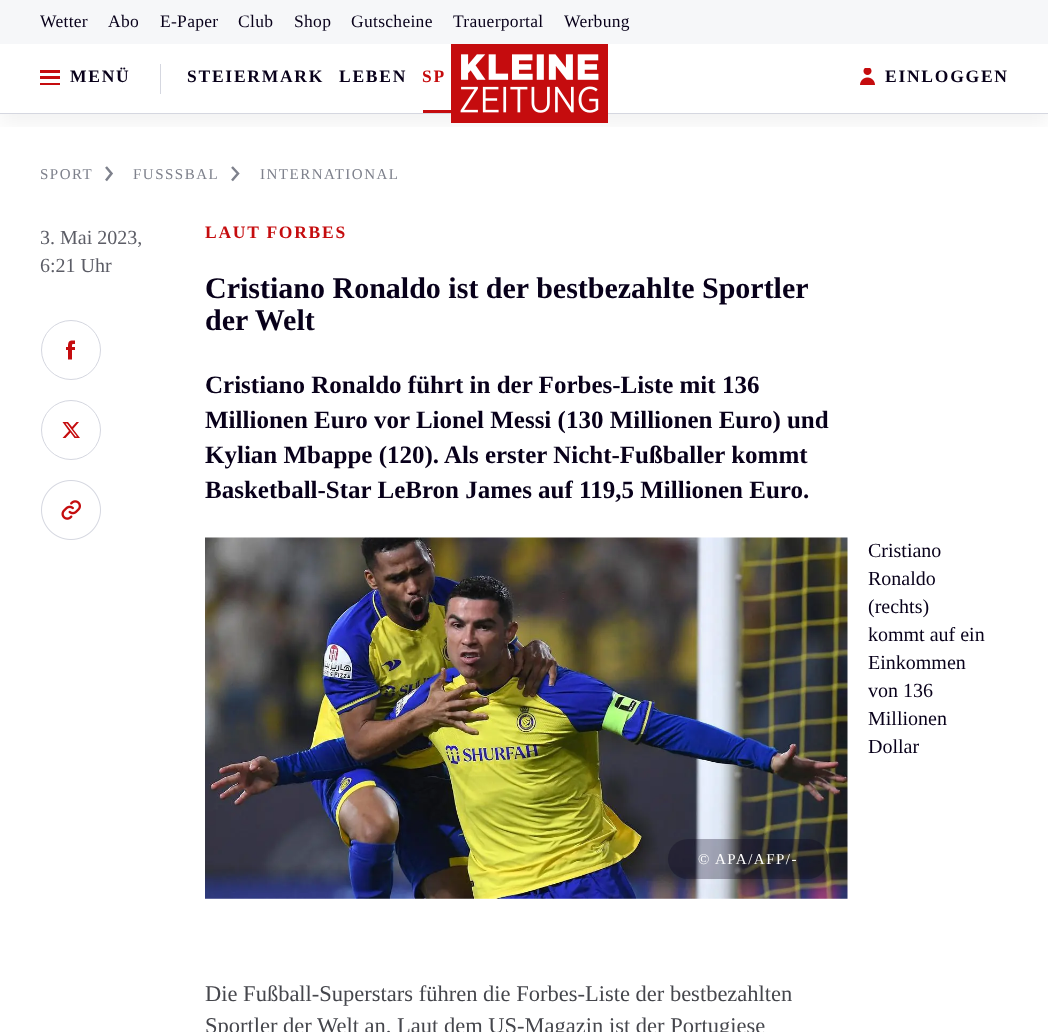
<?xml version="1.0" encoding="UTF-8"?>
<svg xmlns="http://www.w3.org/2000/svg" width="1048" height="1032">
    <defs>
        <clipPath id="clip1"><rect x="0" y="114" width="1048" height="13"/></clipPath>
        <filter id="blur1" x="-50%" y="-200%" width="200%" height="500%"><feGaussianBlur stdDeviation="10"/></filter>
    </defs>
    <rect width="100%" height="100%" fill="#FFFFFF"/>
    <rect x="0" y="0" width="1048" height="44" fill="#F6F7F9"/>
    <text x="40" y="27" font-family="Liberation Serif" font-size="17.5" letter-spacing="0.3" fill="#08001A">Wetter</text>
    <text x="108" y="27" font-family="Liberation Serif" font-size="17.5" letter-spacing="0.3" fill="#08001A">Abo</text>
    <text x="160" y="27" font-family="Liberation Serif" font-size="17.5" letter-spacing="0.3" fill="#08001A">E-Paper</text>
    <text x="238" y="27" font-family="Liberation Serif" font-size="17.5" letter-spacing="0.3" fill="#08001A">Club</text>
    <text x="294" y="27" font-family="Liberation Serif" font-size="17.5" letter-spacing="0.3" fill="#08001A">Shop</text>
    <text x="351" y="27" font-family="Liberation Serif" font-size="17.5" letter-spacing="0.3" fill="#08001A">Gutscheine</text>
    <text x="453" y="27" font-family="Liberation Serif" font-size="17.5" letter-spacing="0.3" fill="#08001A">Trauerportal</text>
    <text x="564" y="27" font-family="Liberation Serif" font-size="17.5" letter-spacing="0.3" fill="#08001A">Werbung</text>
    <g clip-path="url(#clip1)">
        <rect x="0" y="54" width="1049" height="70" fill="#000000" fill-opacity="0.05" filter="url(#blur1)"/>
    </g>
    <rect x="0" y="113" width="1048" height="1" fill="#D5D7E0"/>
    <rect x="40" y="83" width="20" height="2" fill="#C50C0E"/>
    <rect x="40" y="76" width="20" height="3" fill="#C50C0E"/>
    <rect x="40" y="70" width="20" height="3" fill="#C50C0E"/>
    <text x="70" y="82" font-family="Liberation Serif" font-size="17.5" font-weight="700" letter-spacing="1.75" fill="#08001A">MENÜ</text>
    <rect x="160" y="64" width="1" height="30" fill="#D5D7E0"/>
    <text x="187" y="82" font-family="Liberation Serif" font-size="17.5" font-weight="700" letter-spacing="1.75" fill="#08001A">STEIERMARK</text>
    <text x="339" y="82" font-family="Liberation Serif" font-size="17.5" font-weight="700" letter-spacing="1.75" fill="#08001A">LEBEN</text>
    <rect x="423" y="110" width="28" height="3" fill="#C50C0E"/>
    <text x="422" y="82" font-family="Liberation Serif" font-size="17.5" font-weight="700" letter-spacing="1.75" fill="#C50C0E">SP</text>
    <image x="451" y="44" width="157" height="79" href="img_01.png"/>
    <image x="860" y="68" width="15" height="17" href="img_02.png"/>
    <text x="885" y="82" font-family="Liberation Serif" font-size="17.5" font-weight="700" letter-spacing="1.75" fill="#08001A">EINLOGGEN</text>
    <text x="40" y="179" font-family="Liberation Serif" font-size="15" letter-spacing="1.5" fill="#7E818C">SPORT</text>
    <path d="M 106 167 L 111.5 173.5 L 106 180.5" fill="none" stroke="#7E818C" stroke-width="2.5"/>
    <text x="133" y="179" font-family="Liberation Serif" font-size="15" letter-spacing="1.5" fill="#7E818C">FUSSSBAL</text>
    <path d="M 232 167 L 238 173.5 L 232 180.5" fill="none" stroke="#7E818C" stroke-width="2.5"/>
    <text x="260" y="179" font-family="Liberation Serif" font-size="15" letter-spacing="1.5" fill="#7E818C">INTERNATIONAL</text>
    <text font-family="Liberation Serif" font-size="20" fill="#5C5D66">
        <tspan x="40" y="244">3. Mai 2023,</tspan>
        <tspan x="40" y="272">6:21 Uhr</tspan>
    </text>
    <path d="M 72 359.5 H 68 V 350 H 66 V 347 H 68 C 68 340.5 69.5 340.5 75 340.5 V 344 C 72 344 72 343.5 72 347 H 75 V 350 H 72 Z" fill="#C50C0E" fill-rule="evenodd"/>
    <circle cx="71" cy="350" r="29.5" fill="none" stroke="#D5D7E0"/>
    <path d="M 76.5 422 H 79 L 73 429 L 80 438 H 74.5 L 70.5 432.5 L 65.5 438 H 62.5 L 69 431 L 62.5 422 H 68 L 72 427 Z M 75.5 436.5 H 77 L 67 423.5 H 65.5 Z" fill="#C50C0E" fill-rule="evenodd"/>
    <circle cx="71" cy="430" r="29.5" fill="none" stroke="#D5D7E0"/>
    <image x="41" y="480" width="60" height="60" href="img_03.png"/>
    <text x="205" y="238" font-family="Liberation Serif" font-size="17.5" font-weight="700" letter-spacing="1.75" fill="#C50C0E">LAUT FORBES</text>
    <text font-family="Liberation Serif" font-size="30" font-weight="700" fill="#08001A">
        <tspan x="205" y="298">Cristiano Ronaldo ist der bestbezahlte Sportler</tspan>
        <tspan x="205" y="330">der Welt</tspan>
    </text>
    <text font-family="Liberation Serif" font-size="25" font-weight="700" fill="#08001A">
        <tspan x="205" y="393">Cristiano Ronaldo führt in der Forbes-Liste mit 136</tspan>
        <tspan x="205" y="428">Millionen Euro vor Lionel Messi (130 Millionen Euro) und</tspan>
        <tspan x="205" y="463">Kylian Mbappe (120). Als erster Nicht-Fußballer kommt</tspan>
        <tspan x="205" y="498">Basketball-Star LeBron James auf 119,5 Millionen Euro.</tspan>
    </text>
    <text font-family="Liberation Serif" font-size="20" fill="#08001A">
        <tspan x="868" y="557">Cristiano</tspan>
        <tspan x="868" y="585">Ronaldo</tspan>
        <tspan x="868" y="613">(rechts)</tspan>
        <tspan x="868" y="641">kommt auf ein</tspan>
        <tspan x="868" y="669">Einkommen</tspan>
        <tspan x="868" y="697">von 136</tspan>
        <tspan x="868" y="725">Millionen</tspan>
        <tspan x="868" y="753">Dollar</tspan>
    </text>
    <image x="205" y="537" width="643" height="362" href="img_04.png"/>
    <rect x="668" y="839" width="160" height="40" rx="20" fill="#08001A" fill-opacity="0.3"/>
    <text x="698" y="864" font-family="Liberation Serif" font-size="15" letter-spacing="1.5" fill="#FFFFFF">©</text>
    <text x="715" y="864" font-family="Liberation Serif" font-size="15" letter-spacing="1.5" fill="#FFFFFF">APA/AFP/-</text>
    <text font-family="Liberation Serif" font-size="22.5" fill="#45464C">
        <tspan x="205" y="1001">Die Fußball-Superstars führen die Forbes-Liste der bestbezahlten</tspan>
        <tspan x="205" y="1033">Sportler der Welt an. Laut dem US-Magazin ist der Portugiese</tspan>
    </text>
</svg>
